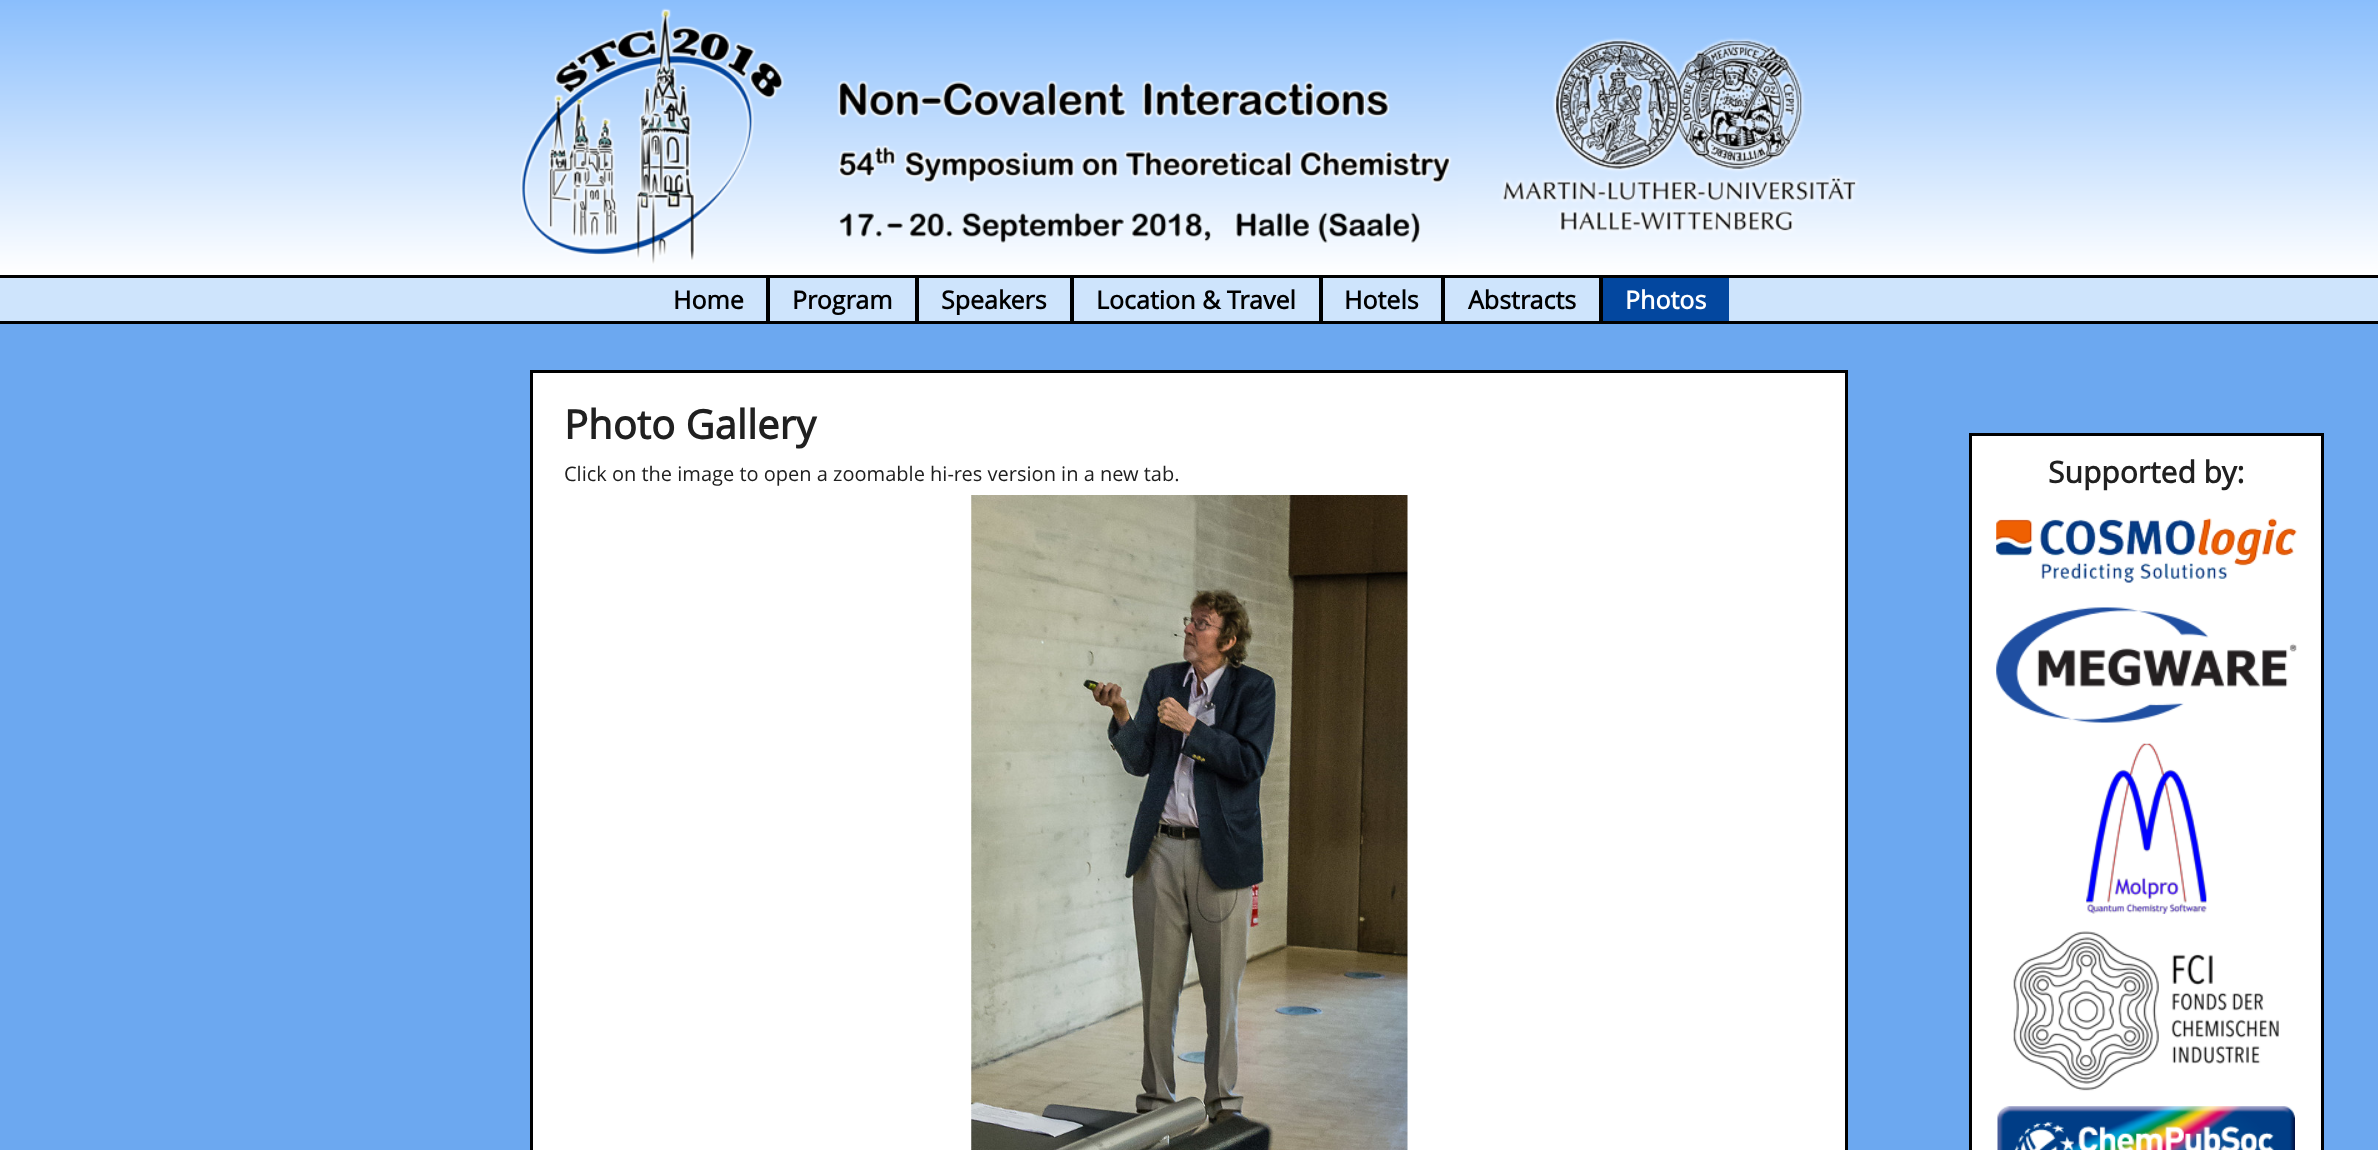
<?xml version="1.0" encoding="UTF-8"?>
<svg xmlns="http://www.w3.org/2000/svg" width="2378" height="1150">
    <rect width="100%" height="100%" fill="#6CA8F0"/>
    <image x="0" y="0" width="2378" height="275" href="img_01.png"/>
    <image x="520" y="8" width="1339" height="256" href="img_02.png"/>
    <rect x="0" y="278" width="2378" height="43" fill="#CEE4FC"/>
    <rect x="0" y="275" width="2378" height="3" fill="#000000"/>
    <rect x="0" y="321" width="2378" height="3" fill="#000000"/>
    <rect x="766" y="278" width="4" height="43" fill="#000000"/>
    <text x="673" y="309" font-family="Open Sans" font-size="25" font-weight="700" fill="#000000">Home</text>
    <rect x="915" y="278" width="4" height="43" fill="#000000"/>
    <text x="792" y="309" font-family="Open Sans" font-size="25" font-weight="700" fill="#000000">Program</text>
    <rect x="1070" y="278" width="4" height="43" fill="#000000"/>
    <text x="941" y="309" font-family="Open Sans" font-size="25" font-weight="700" fill="#000000">Speakers</text>
    <rect x="1319" y="278" width="4" height="43" fill="#000000"/>
    <text x="1096" y="309" font-family="Open Sans" font-size="25" font-weight="700" fill="#000000">Location &amp; Travel</text>
    <rect x="1441" y="278" width="4" height="43" fill="#000000"/>
    <text x="1344" y="309" font-family="Open Sans" font-size="25" font-weight="700" fill="#000000">Hotels</text>
    <rect x="1599" y="278" width="4" height="43" fill="#000000"/>
    <text x="1468" y="309" font-family="Open Sans" font-size="25" font-weight="700" fill="#000000">Abstracts</text>
    <rect x="1603" y="278" width="126" height="43" fill="#03479F"/>
    <text x="1625" y="309" font-family="Open Sans" font-size="25" font-weight="700" fill="#FFFFFF">Photos</text>
    <rect x="531.5" y="371.5" width="1315" height="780" fill="#FFFFFF" stroke="#000000" stroke-width="3"/>
    <text x="564" y="439" font-family="Open Sans" font-size="40" font-weight="700" fill="#202020">Photo Gallery</text>
    <text x="564" y="481" font-family="Open Sans" font-size="20" fill="#202020">Click on the image to open a zoomable hi-res version in a new tab.</text>
    <image x="971" y="495" width="437" height="655" href="img_03.png"/>
    <rect x="1970.5" y="434.5" width="352" height="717" fill="#FFFFFF" stroke="#000000" stroke-width="3"/>
    <text x="2048" y="483" font-family="Open Sans" font-size="30" font-weight="700" fill="#202020">Supported by:</text>
    <image x="1996" y="518" width="301" height="65" href="img_04.png"/>
    <image x="1996" y="607" width="301" height="116" href="img_05.png"/>
    <image x="2086" y="743" width="121" height="171" href="img_06.png"/>
    <image x="2013" y="931" width="266" height="160" href="img_07.png"/>
    <image x="1997" y="1106" width="298" height="44" href="img_08.png"/>
</svg>
